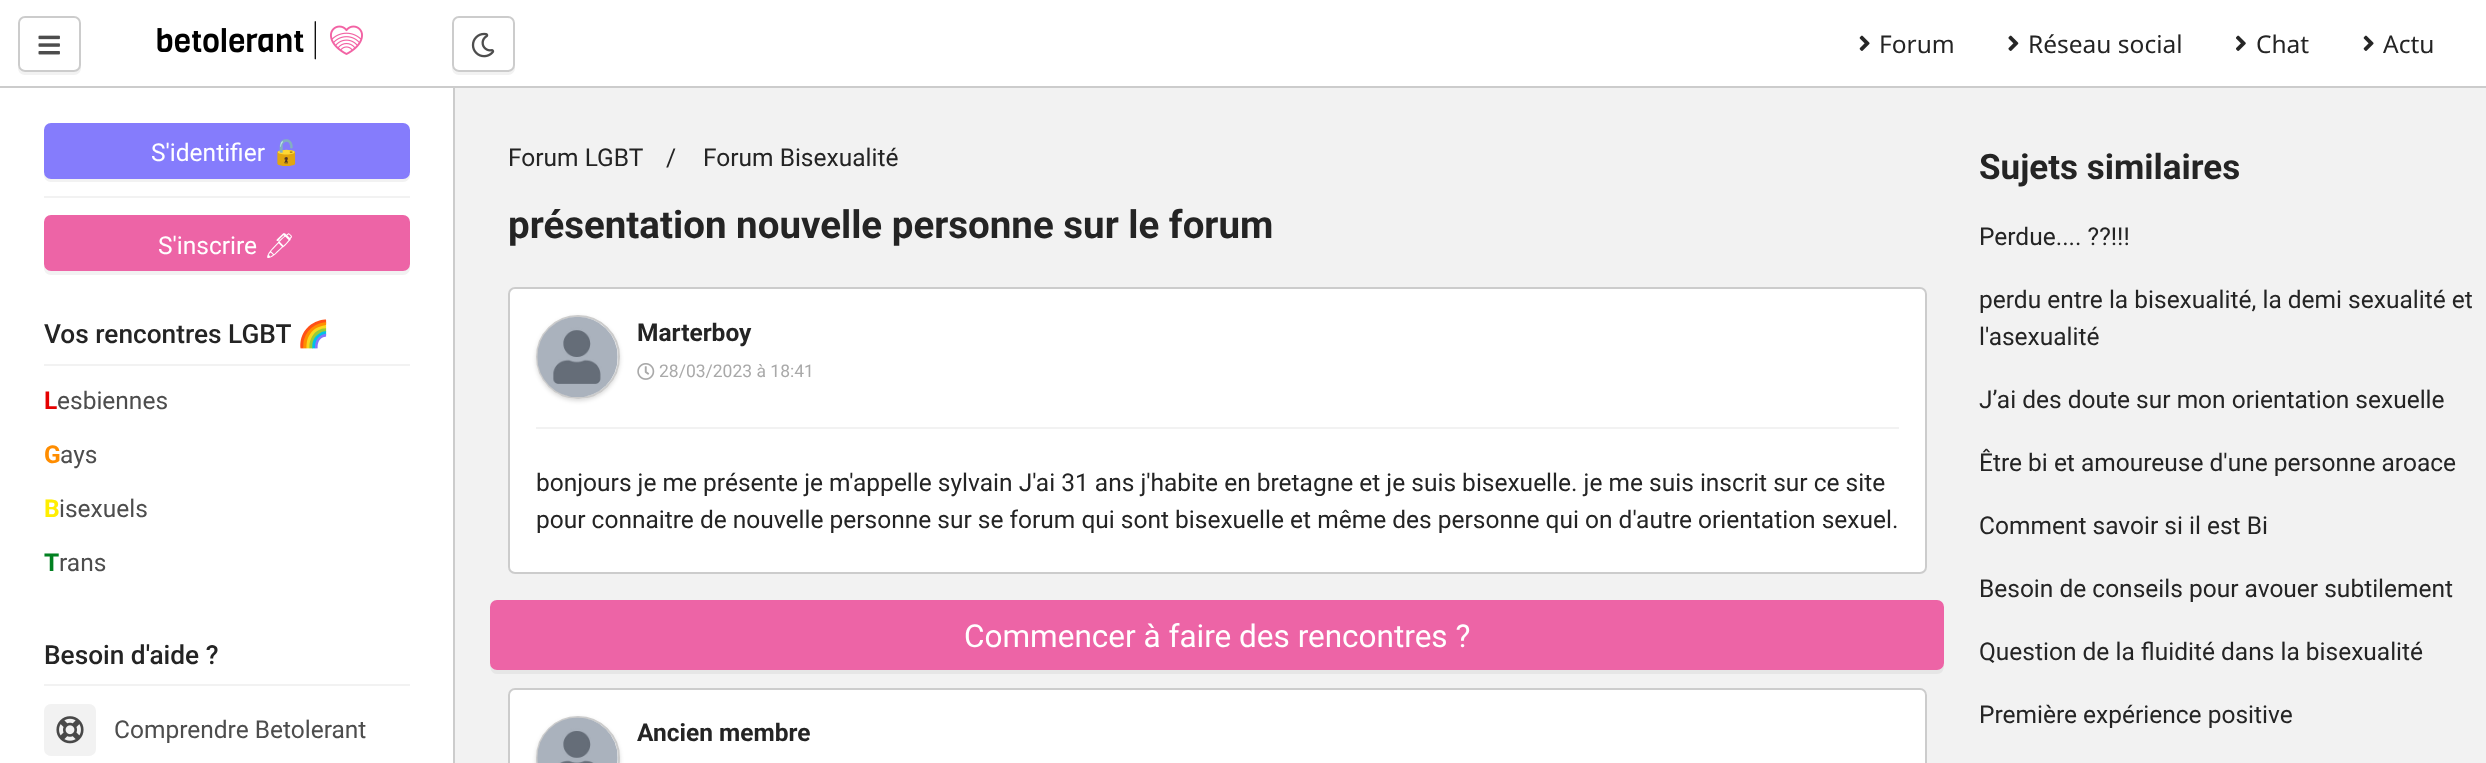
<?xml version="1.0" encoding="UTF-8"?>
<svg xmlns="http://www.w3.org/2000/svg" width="2486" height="763">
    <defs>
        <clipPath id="clip1"><path d="M 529 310 H 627 V 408 H 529 Z M 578 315 C 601 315 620 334 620 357 C 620 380 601 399 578 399 C 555 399 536 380 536 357 C 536 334 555 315 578 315 Z" clip-rule="evenodd"/></clipPath>
        <filter id="blur1" x="-50%" y="-200%" width="200%" height="500%"><feGaussianBlur stdDeviation="2"/></filter>
        <clipPath id="clip2"><path d="M 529 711 H 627 V 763 H 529 Z M 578 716 C 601 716 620 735 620 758 C 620 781 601 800 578 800 C 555 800 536 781 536 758 C 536 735 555 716 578 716 Z" clip-rule="evenodd"/></clipPath>
    </defs>
    <rect width="100%" height="100%" fill="#F2F2F2"/>
    <rect x="0" y="0" width="2486" height="86" fill="#FFFFFF"/>
    <rect x="0" y="86" width="2486" height="2" fill="#CCCCCC"/>
    <path d="M 18 67 V 68 C 18 72 21 75 25 75 H 74 C 78 75 81 72 81 68 V 26 L 80 23 V 65 C 80 69 77 72 74 72 H 24 C 22 72 19 70 18 67 Z" fill="#F2F2F2"/>
    <rect x="18" y="16" width="63" height="56" rx="7" fill="#FFFFFF"/>
    <rect x="19" y="17" width="61" height="54" rx="6" fill="none" stroke="#000000" stroke-opacity="0.2" stroke-width="2"/>
    <image x="38" y="35" width="22" height="20" href="img_01.png"/>
    <image x="157" y="21" width="206" height="39" href="img_02.png"/>
    <path d="M 452 67 V 68 C 452 72 455 75 459 75 H 508 C 512 75 515 72 515 68 V 26 L 514 23 V 65 C 514 69 511 72 508 72 H 458 C 456 72 453 70 452 67 Z" fill="#F2F2F2"/>
    <rect x="452" y="16" width="63" height="56" rx="7" fill="#FFFFFF"/>
    <rect x="453" y="17" width="61" height="54" rx="6" fill="none" stroke="#000000" stroke-opacity="0.2" stroke-width="2"/>
    <image x="471" y="32" width="24" height="26" href="img_03.png"/>
    <image x="1859" y="35" width="11" height="16" href="img_04.png"/>
    <text x="1879" y="53" font-family="Noto Sans" font-size="24.5" fill="#242424">Forum</text>
    <image x="2008" y="35" width="11" height="16" href="img_05.png"/>
    <text x="2028" y="53" font-family="Noto Sans" font-size="24.5" fill="#242424">Réseau social</text>
    <image x="2236" y="35" width="10" height="16" href="img_06.png"/>
    <text x="2256" y="53" font-family="Noto Sans" font-size="24.5" fill="#242424">Chat</text>
    <image x="2363" y="35" width="11" height="16" href="img_04.png"/>
    <text x="2383" y="53" font-family="Noto Sans" font-size="24.5" fill="#242424">Actu</text>
    <rect x="0" y="88" width="453" height="675" fill="#FFFFFF"/>
    <rect x="453" y="88" width="2" height="675" fill="#CCCCCC"/>
    <path d="M 44 173 V 175 C 44 179 47 182 51 182 H 403 C 407 182 410 179 410 175 V 133 V 130 V 172 C 410 175 406 178 402 178 H 51 C 48 178 45 176 44 173 Z" fill="#F2F2F2"/>
    <rect x="45" y="124" width="364" height="54" rx="6" fill="#857CFC" stroke="#857CFC" stroke-width="2"/>
    <text x="151" y="161" font-family="Roboto" font-size="24.5" fill="#FFFFFF">S'identifier</text>
    <text x="271" y="161" font-family="Noto Color Emoji" font-size="24.5" fill="#FFFFFF">🔓</text>
    <rect x="44" y="196" width="366" height="2" fill="#F2F2F2"/>
    <path d="M 44 266 V 268 C 44 272 47 275 51 275 H 403 C 407 275 410 272 410 268 V 226 V 223 V 264 C 410 268 406 271 402 271 H 51 C 48 271 45 269 44 266 Z" fill="#F2F2F2"/>
    <rect x="45" y="216" width="364" height="54" rx="6" fill="#ED64A6" stroke="#ED64A6" stroke-width="2"/>
    <text x="158" y="254" font-family="Roboto" font-size="24.5" fill="#FFFFFF">S'inscrire</text>
    <text x="264" y="254" font-family="Noto Emoji" font-size="24.5" fill="#FFFFFF">🖊</text>
    <text x="44" y="343" font-family="Roboto" font-size="26.25" font-weight="500" fill="#242424">Vos rencontres LGBT</text>
    <text x="297" y="343" font-family="Noto Color Emoji" font-size="26.25" fill="#242424">🌈</text>
    <rect x="44" y="364" width="366" height="2" fill="#F2F2F2"/>
    <text x="44" y="409" font-family="Roboto" font-size="24.5" font-weight="700" fill="#E50000">L</text>
    <text x="57" y="409" font-family="Roboto" font-size="24.5" fill="#4D4D4D">esbiennes</text>
    <text x="44" y="463" font-family="Roboto" font-size="24.5" font-weight="700" fill="#FF8D00">G</text>
    <text x="60" y="463" font-family="Roboto" font-size="24.5" fill="#4D4D4D">ays</text>
    <text x="44" y="517" font-family="Roboto" font-size="24.5" font-weight="700" fill="#FFEE00">B</text>
    <text x="59" y="517" font-family="Roboto" font-size="24.5" fill="#4D4D4D">isexuels</text>
    <text x="44" y="571" font-family="Roboto" font-size="24.5" font-weight="700" fill="#028121">T</text>
    <text x="59" y="571" font-family="Roboto" font-size="24.5" fill="#4D4D4D">rans</text>
    <text x="44" y="664" font-family="Roboto" font-size="26.25" font-weight="500" fill="#242424">Besoin d'aide ?</text>
    <rect x="44" y="684" width="366" height="2" fill="#F2F2F2"/>
    <rect x="44" y="704" width="52" height="52" rx="7" fill="#F2F2F2"/>
    <image x="56" y="716" width="28" height="28" href="img_07.png"/>
    <text x="114" y="738" font-family="Roboto" font-size="24.5" fill="#4D4D4D">Comprendre Betolerant</text>
    <text x="508" y="166" font-family="Roboto" font-size="24.5" fill="#242424">Forum LGBT</text>
    <text x="666" y="166" font-family="Roboto" font-size="24.5" fill="#242424">/</text>
    <text x="703" y="166" font-family="Roboto" font-size="24.5" fill="#242424">Forum Bisexualité</text>
    <text x="508" y="238" font-family="Roboto" font-size="38.5" font-weight="700" fill="#242424">présentation nouvelle personne sur le forum</text>
    <rect x="508" y="287" width="1419" height="287" rx="7" fill="#FFFFFF"/>
    <rect x="509" y="288" width="1417" height="285" rx="6" fill="none" stroke="#000000" stroke-opacity="0.2" stroke-width="2"/>
    <g clip-path="url(#clip1)">
        <rect x="536" y="317" width="84" height="84" rx="42" fill="#000000" fill-opacity="0.15" filter="url(#blur1)"/>
    </g>
    <circle cx="578" cy="357" r="41" fill="none" stroke="#000000" stroke-opacity="0.2" stroke-width="2"/>
    <image x="537" y="317" width="81" height="80" href="img_08.png"/>
    <text x="637" y="341" font-family="Roboto" font-size="24.5" font-weight="700" fill="#242424">Marterboy</text>
    <image x="637" y="363" width="18" height="17" href="img_09.png"/>
    <text x="659" y="377" font-family="Roboto" font-size="17.5" fill="#A9A9A9">28/03/2023 à 18:41</text>
    <rect x="536" y="427" width="1363" height="2" fill="#F2F2F2"/>
    <text font-family="Roboto" font-size="24.5" fill="#242424">
        <tspan x="536" y="491">bonjours je me présente je m'appelle sylvain J'ai 31 ans j'habite en bretagne et je suis bisexuelle. je me suis inscrit sur ce site</tspan>
        <tspan x="536" y="528">pour connaitre de nouvelle personne sur se forum qui sont bisexuelle et même des personne qui on d'autre orientation sexuel.</tspan>
    </text>
    <path d="M 490 663 C 490 668 491 674 497 674 H 1937 C 1942 674 1944 670 1944 665 C 1943 668 1940 670 1937 670 H 497 C 493 670 490 667 490 663 Z" fill="#E6E6E6"/>
    <rect x="491" y="601" width="1452" height="68" rx="6" fill="#ED64A6" stroke="#ED64A6" stroke-width="2"/>
    <text x="964" y="647" font-family="Roboto" font-size="31.5" fill="#FFFFFF">Commencer à faire des rencontres ?</text>
    <path d="M 515 688 H 1920 C 1924 688 1927 691 1927 695 V 763 H 508 V 695 C 508 691 511 688 515 688 Z" fill="#FFFFFF"/>
    <rect x="509" y="689" width="1417" height="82" rx="6" fill="none" stroke="#000000" stroke-opacity="0.2" stroke-width="2"/>
    <g clip-path="url(#clip2)">
        <rect x="536" y="718" width="84" height="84" rx="42" fill="#000000" fill-opacity="0.15" filter="url(#blur1)"/>
    </g>
    <circle cx="578" cy="758" r="41" fill="none" stroke="#000000" stroke-opacity="0.2" stroke-width="2"/>
    <image x="537" y="717" width="81" height="46" href="img_10.png"/>
    <text x="637" y="741" font-family="Roboto" font-size="24.5" font-weight="700" fill="#242424">Ancien membre</text>
    <text x="1979" y="179" font-family="Roboto" font-size="35" font-weight="700" fill="#242424">Sujets similaires</text>
    <text x="1979" y="245" font-family="Roboto" font-size="24.5" fill="#242424">Perdue.... ??!!!</text>
    <text font-family="Roboto" font-size="24.5" fill="#242424">
        <tspan x="1979" y="308">perdu entre la bisexualité, la demi sexualité et</tspan>
        <tspan x="1979" y="345">l'asexualité</tspan>
    </text>
    <text x="1979" y="408" font-family="Roboto" font-size="24.5" fill="#242424">J’ai des doute sur mon orientation sexuelle</text>
    <text x="1979" y="471" font-family="Roboto" font-size="24.5" fill="#242424">Être bi et amoureuse d'une personne aroace</text>
    <text x="1979" y="534" font-family="Roboto" font-size="24.5" fill="#242424">Comment savoir si il est Bi</text>
    <text x="1979" y="597" font-family="Roboto" font-size="24.5" fill="#242424">Besoin de conseils pour avouer subtilement</text>
    <text x="1979" y="660" font-family="Roboto" font-size="24.5" fill="#242424">Question de la fluidité dans la bisexualité</text>
    <text x="1979" y="723" font-family="Roboto" font-size="24.5" fill="#242424">Première expérience positive</text>
</svg>
